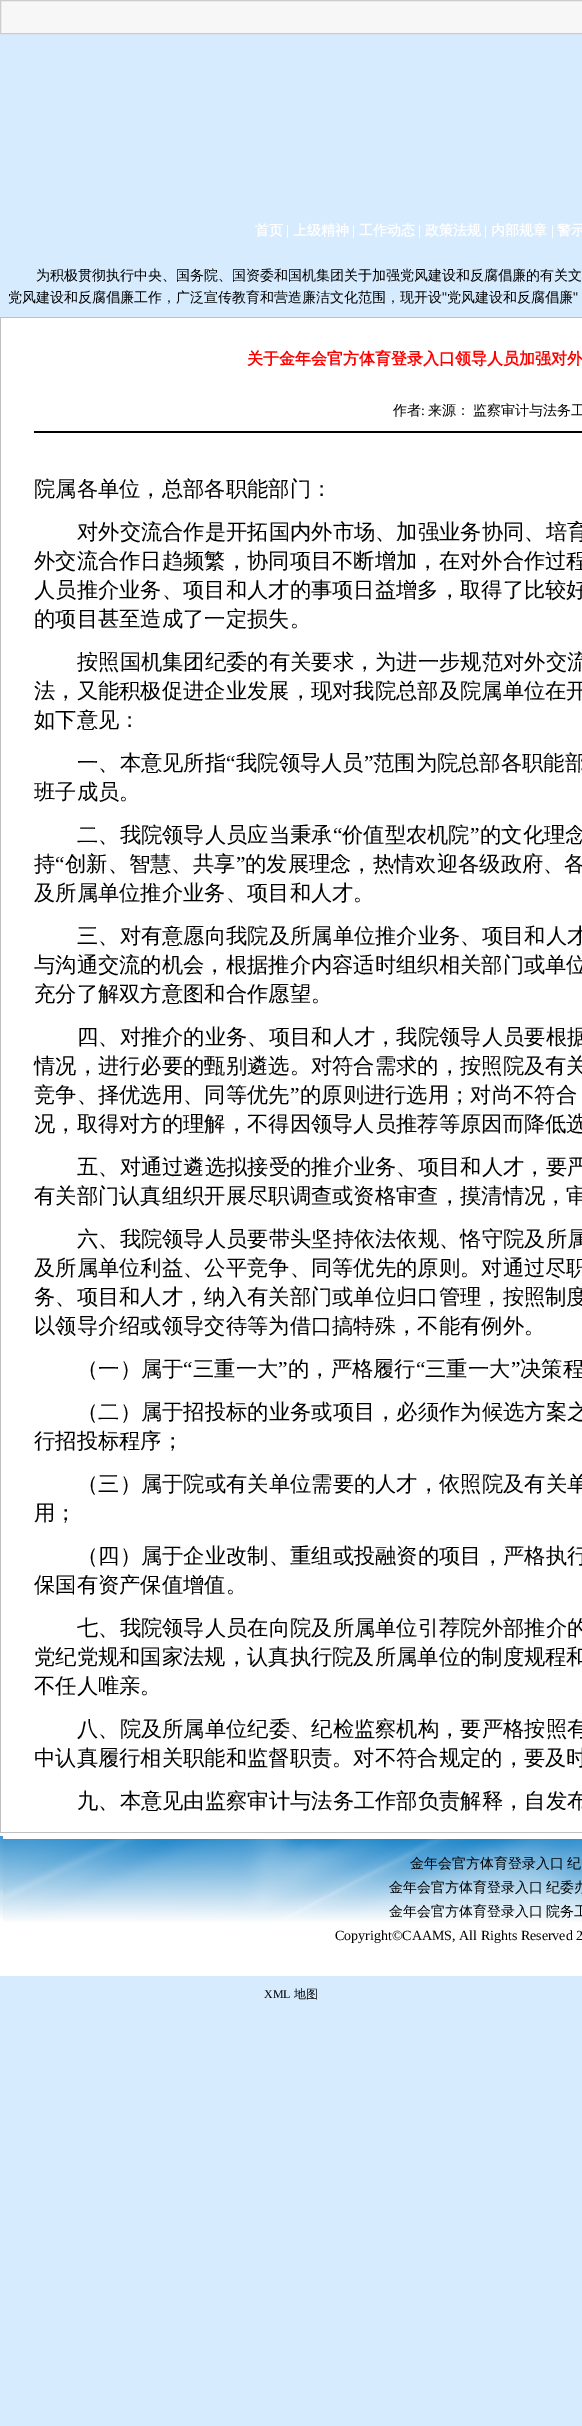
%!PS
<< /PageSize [582 2426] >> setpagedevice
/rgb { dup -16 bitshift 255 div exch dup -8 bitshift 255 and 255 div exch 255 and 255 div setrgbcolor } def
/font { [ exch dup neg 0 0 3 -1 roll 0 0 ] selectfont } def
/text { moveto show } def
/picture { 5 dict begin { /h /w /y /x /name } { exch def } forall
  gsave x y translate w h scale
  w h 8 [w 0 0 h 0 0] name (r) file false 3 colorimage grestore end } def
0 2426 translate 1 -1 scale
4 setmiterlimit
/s1 { /WenQuanYiZenHei-Bold 14 font 16#FFFFFF rgb } def
/s2 { /LiberationSerif-Bold 14 font 16#FFFFFF rgb } def
/s3 { /WenQuanYiZenHei-Medium 14 font 16#000000 rgb } def
/s4 { /LiberationSans-Regular 14 font 16#000000 rgb } def
/s5 { /WenQuanYiZenHei-Bold 16 font 16#FF0000 rgb } def
/s6 { /LiberationSerif-Regular 14 font 16#000000 rgb } def
/s7 { /WenQuanYiZenHei-Medium 21.3 font 16#000000 rgb } def
/s8 { /LiberationSerif-Regular 21.3 font 16#000000 rgb } def
/s9 { /LiberationSerif-Regular 12 font 16#000000 rgb } def
/s10 { /WenQuanYiZenHei-Medium 12 font 16#000000 rgb } def
16#D7EBFF rgb
0 0 582 2426 rectfill
16#F7F7F7 rgb
0.5 0.5 moveto 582.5 0.5 lineto 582.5 33.5 lineto 0.5 33.5 lineto closepath gsave fill grestore
16#CCCCCC rgb
stroke
s1
(首页) 255 235 text
s2
(|) 286 235 text
s1
(上级精神) 293 235 text
s2
(|) 352 235 text
s1
(工作动态) 359 235 text
s2
(|) 418 235 text
s1
(政策法规) 425 235 text
s2
(|) 484 235 text
s1
(内部规章) 491 235 text
s2
(|) 551 235 text
s1
(警示) 557 235 text
s3
(为积极贯彻执行中央、国务院、国资委和国机集团关于加强党风建设和反腐倡廉的有关文) 36 280 text
(党风建设和反腐倡廉工作，广泛宣传教育和营造廉洁文化范围，现开设) 8 302 text
s4
(") 442 302 text
s3
(党风建设和反腐倡廉) 447 302 text
s4
(") 573 302 text
16#FFFFFF rgb
0 318 582 1658 rectfill
16#C0C0C0 rgb
0 317 582 1 rectfill
0 1832 582 1 rectfill
0 317 1 1516 rectfill
s5
(关于金年会官方体育登录入口领导人员加强对外) 247 364 text
s3
(作者) 393 415 text
s6
(:) 421 415 text
s3
(来源：) 428 415 text
(监察审计与法务工) 473 415 text
34 431 548 2 rectfill
s7
(院属各单位，总部各职能部门：) 34 496 text
(对外交流合作是开拓国内外市场、加强业务协同、培育) 77 539 text
(外交流合作日趋频繁，协同项目不断增加，在对外合作过程) 34 568 text
(人员推介业务、项目和人才的事项日益增多，取得了比较好) 34 597 text
(的项目甚至造成了一定损失。) 34 626 text
(按照国机集团纪委的有关要求，为进一步规范对外交流) 77 669 text
(法，又能积极促进企业发展，现对我院总部及院属单位在开) 34 698 text
(如下意见：) 34 727 text
(一、本意见所指) 77 770 text
s8
(“) 226 770 text
s7
(我院领导人员) 236 770 text
s8
(”) 364 770 text
s7
(范围为院总部各职能部) 373 770 text
(班子成员。) 34 799 text
(二、我院领导人员应当秉承) 77 842 text
s8
(“) 333 842 text
s7
(价值型农机院) 342 842 text
s8
(”) 470 842 text
s7
(的文化理念) 480 842 text
(持) 34 871 text
s8
(“) 55 871 text
s7
(创新、智慧、共享) 65 871 text
s8
(”) 236 871 text
s7
(的发展理念，热情欢迎各级政府、各) 245 871 text
(及所属单位推介业务、项目和人才。) 34 900 text
(三、对有意愿向我院及所属单位推介业务、项目和人才) 77 943 text
(与沟通交流的机会，根据推介内容适时组织相关部门或单位) 34 972 text
(充分了解双方意图和合作愿望。) 34 1001 text
(四、对推介的业务、项目和人才，我院领导人员要根据) 77 1044 text
(情况，进行必要的甄别遴选。对符合需求的，按照院及有关) 34 1073 text
(竞争、择优选用、同等优先) 34 1102 text
s8
(”) 290 1102 text
s7
(的原则进行选用；对尚不符合) 300 1102 text
(况，取得对方的理解，不得因领导人员推荐等原因而降低选) 34 1131 text
(五、对通过遴选拟接受的推介业务、项目和人才，要严) 77 1174 text
(有关部门认真组织开展尽职调查或资格审查，摸清情况，审) 34 1203 text
(六、我院领导人员要带头坚持依法依规、恪守院及所属) 77 1246 text
(及所属单位利益、公平竞争、同等优先的原则。对通过尽职) 34 1275 text
(务、项目和人才，纳入有关部门或单位归口管理，按照制度) 34 1304 text
(以领导介绍或领导交待等为借口搞特殊，不能有例外。) 34 1333 text
(（一）属于) 77 1376 text
s8
(“) 183 1376 text
s7
(三重一大) 193 1376 text
s8
(”) 278 1376 text
s7
(的，严格履行) 288 1376 text
s8
(“) 416 1376 text
s7
(三重一大) 425 1376 text
s8
(”) 511 1376 text
s7
(决策程) 520 1376 text
(（二）属于招投标的业务或项目，必须作为候选方案之) 77 1419 text
(行招投标程序；) 34 1448 text
(（三）属于院或有关单位需要的人才，依照院及有关单) 77 1491 text
(用；) 34 1520 text
(（四）属于企业改制、重组或投融资的项目，严格执行) 77 1563 text
(保国有资产保值增值。) 34 1592 text
(七、我院领导人员在向院及所属单位引荐院外部推介的) 77 1635 text
(党纪党规和国家法规，认真执行院及所属单位的制度规程和) 34 1664 text
(不任人唯亲。) 34 1693 text
(八、院及所属单位纪委、纪检监察机构，要严格按照有) 77 1736 text
(中认真履行相关职能和监督职责。对不符合规定的，要及时) 34 1765 text
(九、本意见由监察审计与法务工作部负责解释，自发布) 77 1808 text
(pic1.raw) 0 1836 3 83 picture
(pic2.raw) 3 1836 579 86 picture
/WenQuanYiZenHei-Medium 14 font
410 1868 moveto -1 0 32 (金年会官方体育登录入口 纪) widthshow
389 1892 moveto -1 0 32 (金年会官方体育登录入口 纪委办) widthshow
389 1916 moveto -1 0 32 (金年会官方体育登录入口 院务工) widthshow
s6
(Copyright©CAAMS, All Rights Reserved 2) 335 1940 text
s9
(XML) 264 1998 text
s10
(地图) 294 1998 text
showpage
